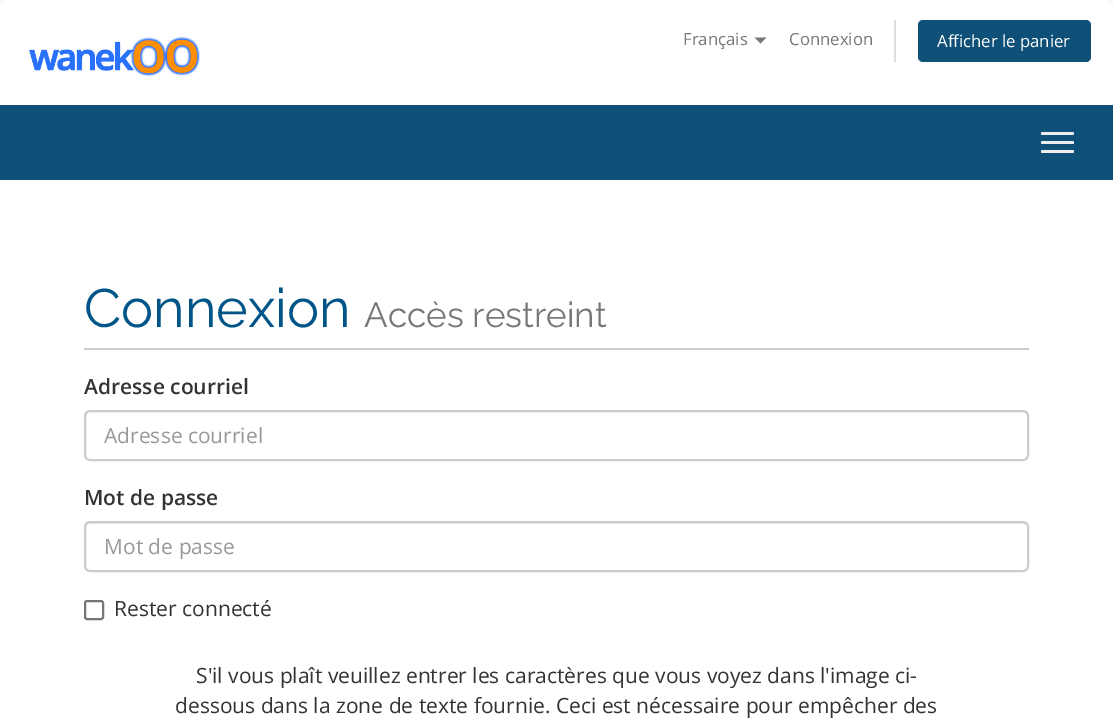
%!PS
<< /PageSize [1113 725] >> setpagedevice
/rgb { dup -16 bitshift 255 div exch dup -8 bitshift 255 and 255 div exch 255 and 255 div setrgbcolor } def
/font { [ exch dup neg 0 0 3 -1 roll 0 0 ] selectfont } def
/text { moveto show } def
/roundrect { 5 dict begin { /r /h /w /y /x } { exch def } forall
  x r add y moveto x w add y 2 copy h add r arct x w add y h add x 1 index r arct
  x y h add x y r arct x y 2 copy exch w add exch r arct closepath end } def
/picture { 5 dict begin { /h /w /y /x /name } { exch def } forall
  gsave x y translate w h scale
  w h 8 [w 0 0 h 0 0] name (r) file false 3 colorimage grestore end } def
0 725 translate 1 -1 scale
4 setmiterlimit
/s1 { /OpenSans-Regular 16.75 font 16#777777 rgb } def
/s2 { /OpenSans-Regular 16.75 font 16#FFFFFF rgb } def
/s3 { /Raleway-Regular 54 font 16#005588 rgb } def
/s4 { /Raleway-Regular 35 font 16#777777 rgb } def
/s5 { /OpenSans-SemiBold 21 font 16#333333 rgb } def
/s6 { /OpenSans-Regular 21 font 16#999999 rgb } def
/s7 { /OpenSans-Regular 21 font 16#333333 rgb } def
16#F8F8F8 rgb
0 0 1113 725 rectfill
16#FFFFFF rgb
8 0 moveto 1105 0 lineto 1109.5 0 1113 3.5 1113 8 curveto 1113 105 lineto 0 105 lineto 0 8 lineto 0 3.5 3.5 0 8 0 curveto closepath fill
(pic1.raw) 29 36 171 41 picture
s1
(Français) 683 45 text
754.5 37.5 moveto 766.5 37.5 lineto 760.5 43.5 lineto closepath fill
(Connexion) 789 45 text
16#DDDDDD rgb
894 20 2 42 rectfill
16#0E5077 rgb
918 20 173 42 5 roundrect fill
s2
(Afficher le panier) 937 47 text
16#0E5077 rgb
0 105 1113 75 rectfill
16#EEEEEE rgb
1041 132 33 3 1.5 roundrect fill
1041 141 33 3 1.5 roundrect fill
1041 150 33 3 1.5 roundrect fill
16#FFFFFF rgb
0 180 1113 545 rectfill
16#CCCCCC rgb
84 348 945 2 rectfill
s3
(Connexion) 84 327 text
s4
(Accès restreint) 364 327 text
s5
(Adresse courriel) 84 394 text
16#ECECEC rgb
90 412 moveto 1023 412 lineto 1025 412 1028 415 1028 417 curveto 1028 414 1026 411 1023 411 curveto 91 411 lineto 88 411 86 414 86 417 curveto 86 415 88 412 90 412 curveto closepath fill
16#CCCCCC rgb
2 setlinewidth
85 411 943 49 5 roundrect stroke
s6
(Adresse courriel) 104 443 text
s5
(Mot de passe) 84 505 text
16#ECECEC rgb
90 524 moveto 1023 524 lineto 1025 524 1028 526 1028 528 curveto 1028 525 1026 522 1023 522 curveto 91 522 lineto 88 522 86 525 86 528 curveto 86 526 88 524 90 524 curveto closepath fill
16#CCCCCC rgb
85 522 943 49 5 roundrect stroke
s6
(Mot de passe) 104 554 text
16#767676 rgb
85 601 18 18 2 roundrect stroke
s7
(Rester connecté) 114 616 text
(S'il vous plaît veuillez entrer les caractères que vous voyez dans l'image ci-) 196 683 text
(dessous dans la zone de texte fournie. Ceci est nécessaire pour empêcher des) 175 713 text
showpage
